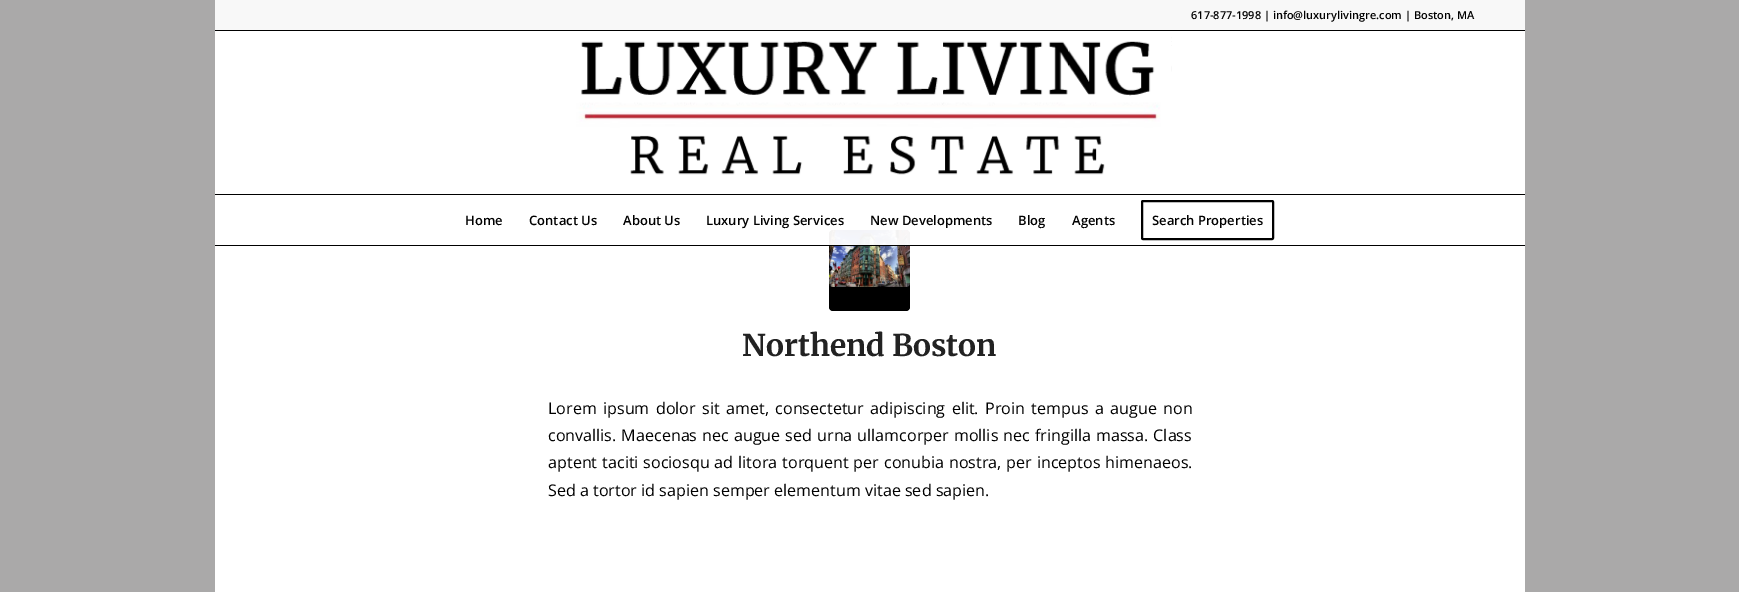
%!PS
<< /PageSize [1739 592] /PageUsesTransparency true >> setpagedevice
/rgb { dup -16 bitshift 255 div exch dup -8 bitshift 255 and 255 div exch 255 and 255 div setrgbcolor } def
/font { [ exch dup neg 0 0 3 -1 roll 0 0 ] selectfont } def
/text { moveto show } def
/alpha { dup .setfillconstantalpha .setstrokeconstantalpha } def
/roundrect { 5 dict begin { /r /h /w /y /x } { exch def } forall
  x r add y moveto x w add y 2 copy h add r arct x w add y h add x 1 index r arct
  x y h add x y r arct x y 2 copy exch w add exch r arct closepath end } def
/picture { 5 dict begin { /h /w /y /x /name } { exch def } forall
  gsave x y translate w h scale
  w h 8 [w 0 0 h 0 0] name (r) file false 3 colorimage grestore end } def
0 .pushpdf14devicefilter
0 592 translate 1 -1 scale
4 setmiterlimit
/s1 { /OpenSans-SemiBold 11 font 16#000000 rgb } def
/s2 { /OpenSans-SemiBold 13 font 16#000000 rgb } def
/s3 { /Merriweather-Bold 30 font 16#222222 rgb } def
/s4 { /OpenSans-Regular 16.1 font 16#000000 rgb } def
16#AAA9A9 rgb
0 0 1739 592 rectfill
16#F8F8F8 rgb
215 0 1310 30 rectfill
16#000000 rgb
215 30 1310 1 rectfill
s1
(617-877-1998 | info@luxurylivingre.com | Boston, MA) 1191 19 text
16#FFFFFF rgb
215 31 1310 561 rectfill
16#000000 rgb
829 230 81 81 4 roundrect fill
(pic2.raw) 829 230 81 57 picture
215 245 1310 1 rectfill
(pic1.raw) 568 34 604 141 picture
215 194 1310 1 rectfill
s2
(Home) 465 225 text
(Contact Us) 529 225 text
(About Us) 623 225 text
(Luxury Living Services) 706 225 text
(New Developments) 870 225 text
(Blog) 1018 225 text
(Agents) 1072 225 text
2 setlinewidth
1142 201 131 38 1 roundrect stroke
(Search Properties) 1152 225 text
0.95 alpha
16#FFFFFF rgb
829 230 81 15 rectfill
1 alpha
s3
(Northend Boston) 742 356 text
/OpenSans-Regular 16.1 font
16#000000 rgb
548 414 moveto 2.25 0 32 (Lorem ipsum dolor sit amet, consectetur adipiscing elit. Proin tempus a augue non) widthshow
548 441 moveto 0.9 0 32 (convallis. Maecenas nec augue sed urna ullamcorper mollis nec fringilla massa. Class) widthshow
548 468 moveto 0.75 0 32 (aptent taciti sociosqu ad litora torquent per conubia nostra, per inceptos himenaeos.) widthshow
(Sed a tortor id sapien semper elementum vitae sed sapien.) 548 496 text
.poppdf14devicefilter showpage
